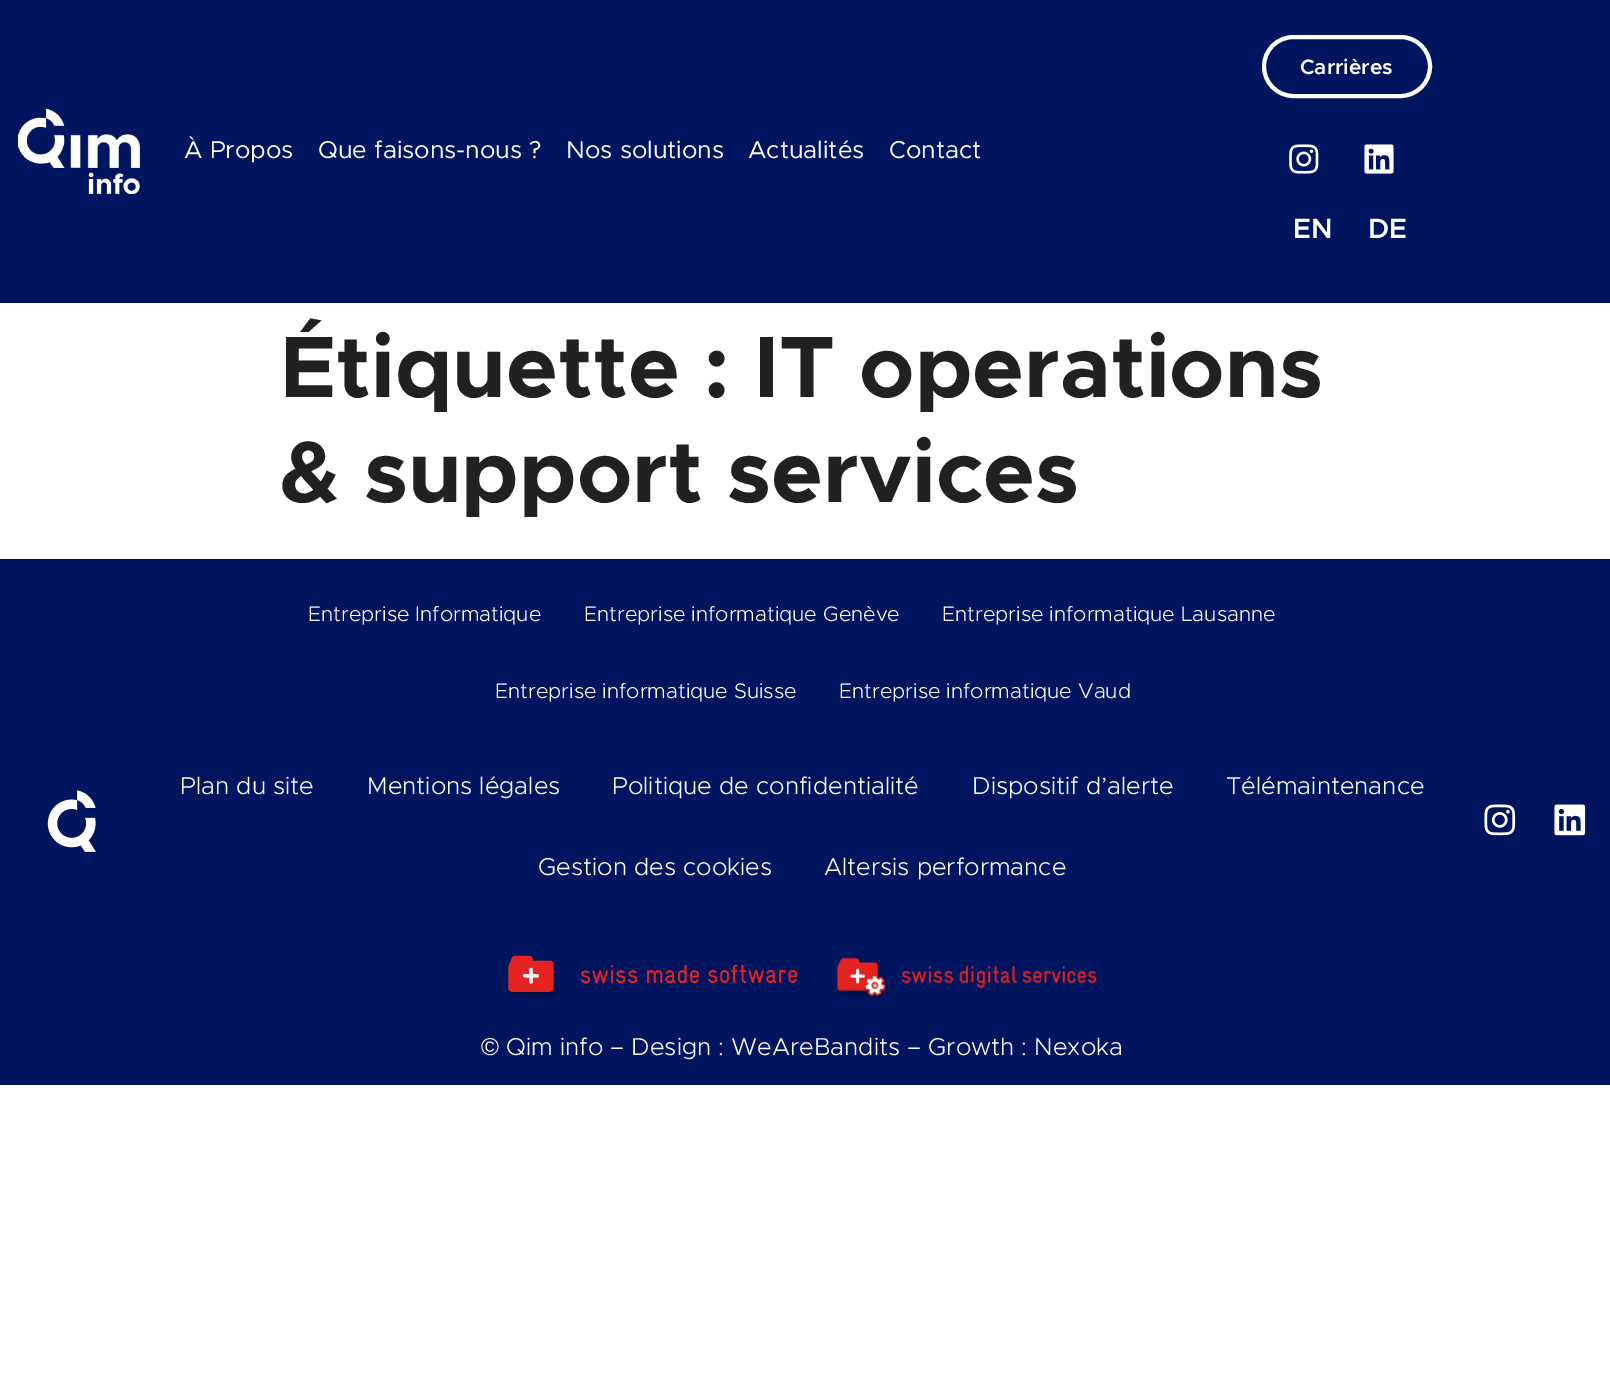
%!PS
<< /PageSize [1610 1387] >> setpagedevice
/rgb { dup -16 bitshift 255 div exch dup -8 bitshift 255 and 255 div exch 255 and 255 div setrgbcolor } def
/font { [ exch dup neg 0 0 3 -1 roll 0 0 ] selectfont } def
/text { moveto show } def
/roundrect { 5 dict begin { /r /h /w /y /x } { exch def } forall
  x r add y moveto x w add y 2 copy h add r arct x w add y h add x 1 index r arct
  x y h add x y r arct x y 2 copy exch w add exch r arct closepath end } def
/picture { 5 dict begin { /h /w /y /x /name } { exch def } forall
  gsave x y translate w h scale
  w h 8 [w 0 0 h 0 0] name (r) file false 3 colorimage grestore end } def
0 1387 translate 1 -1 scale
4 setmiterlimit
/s1 { /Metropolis-Regular 24.5 font 16#FFFFFF rgb } def
/s2 { /Metropolis-SemiBold 21 font 16#FFFFFF rgb } def
/s3 { /Metropolis-SemiBold 28 font 16#FFFFFF rgb } def
/s4 { /Metropolis-Bold 87.5 font 16#212121 rgb } def
/s5 { /Metropolis-Light 21 font 16#FFFFFF rgb } def
/s6 { /Metropolis-Light 24.5 font 16#FFFFFF rgb } def
/s7 { /LiberationSans-Regular 24.5 font 16#FFFFFF rgb } def
16#FFFFFF rgb
0 0 1610 1387 rectfill
16#001560 rgb
0 0 1610 303 rectfill
(pic1.raw) 18 109 122 85 picture
s1
(À Propos) 184 158 text
(Que faisons-nous ?) 318 158 text
(Nos solutions) 566 158 text
(Actualités) 748 158 text
(Contact) 889 158 text
4 setlinewidth
1264 37 166 59 29.5 roundrect stroke
s2
(Carrières) 1300 74 text
(pic2.raw) 1289 144 30 30 picture
(pic3.raw) 1364 144 30 30 picture
s3
(EN) 1293 238 text
(DE) 1368 238 text
s4
(Étiquette : IT operations) 280 397 text
(& support services) 280 502 text
16#001560 rgb
0 559 1610 526 rectfill
(pic4.raw) 47 790 49 62 picture
s5
(Entreprise Informatique) 308 621 text
(Entreprise informatique Genève) 584 621 text
(Entreprise informatique Lausanne) 942 621 text
(Entreprise informatique Suisse) 495 698 text
(Entreprise informatique Vaud) 839 698 text
s6
(Plan du site) 180 794 text
(Mentions légales) 367 794 text
(Politique de confidentialité) 612 794 text
(Dispositif d’alerte) 972 794 text
(Télémaintenance) 1226 794 text
(Gestion des cookies) 538 875 text
(Altersis performance) 824 875 text
(pic5.raw) 507 955 291 45 picture
(pic6.raw) 836 957 261 42 picture
s7
(©) 481 1055 text
s6
(Qim info – Design : WeAreBandits – Growth : Nexoka) 506 1055 text
(pic7.raw) 1484 804 32 32 picture
(pic8.raw) 1554 804 32 32 picture
showpage
